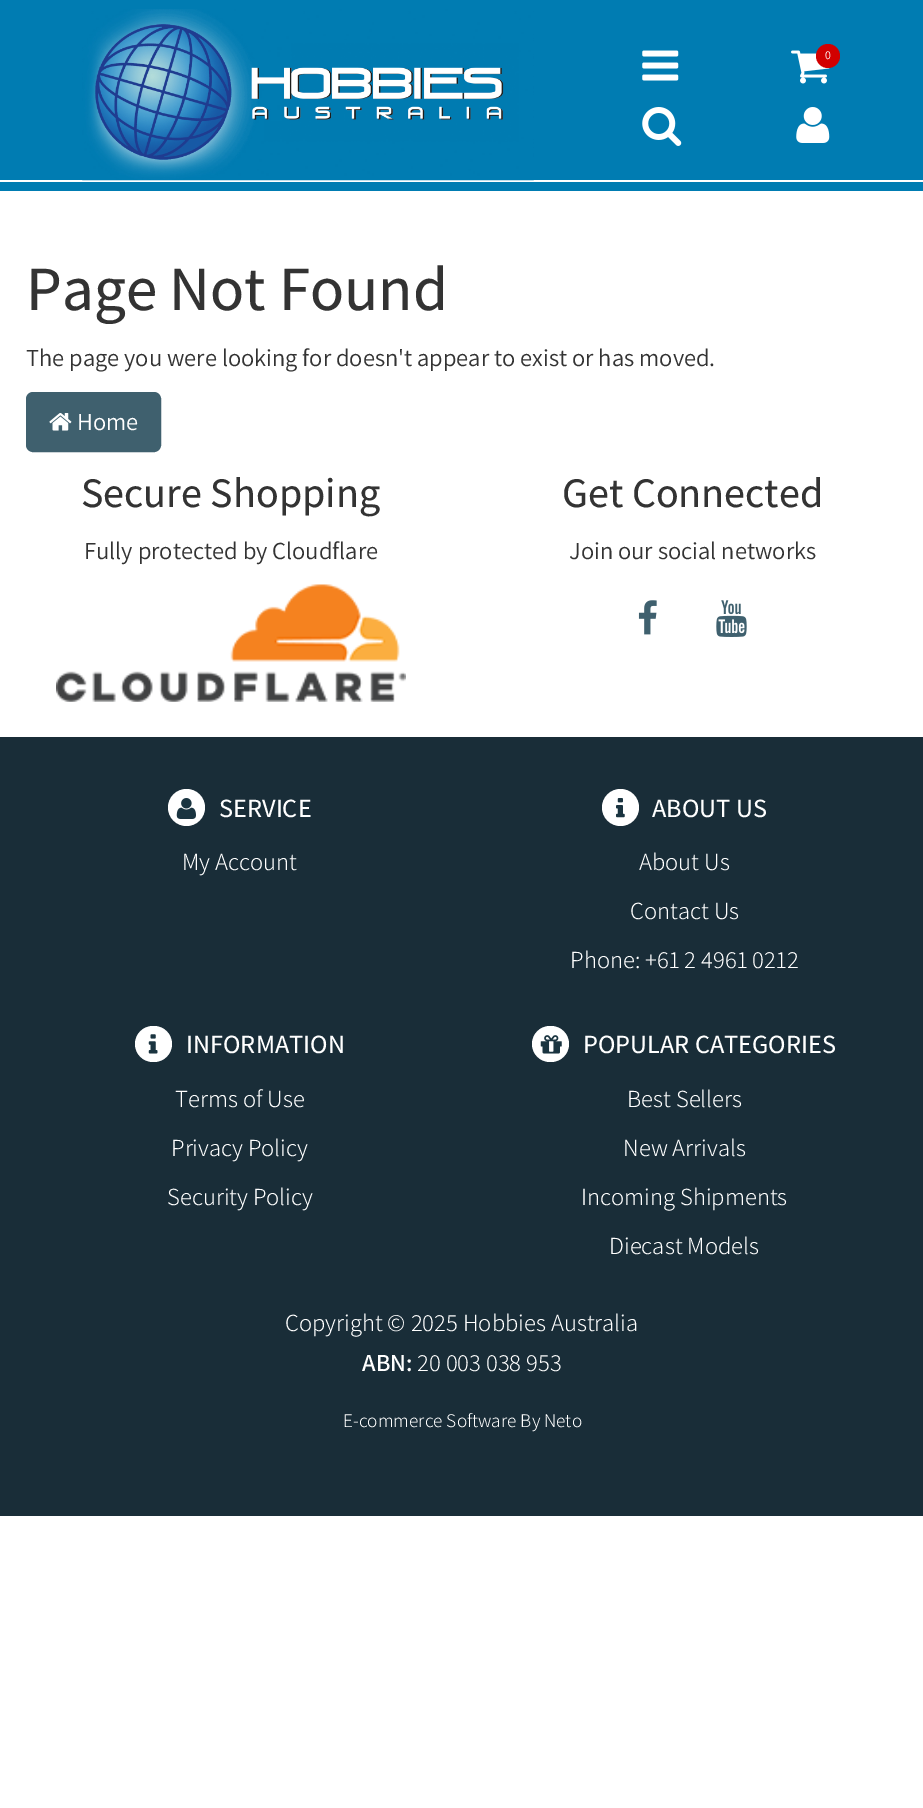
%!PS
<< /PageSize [923 1808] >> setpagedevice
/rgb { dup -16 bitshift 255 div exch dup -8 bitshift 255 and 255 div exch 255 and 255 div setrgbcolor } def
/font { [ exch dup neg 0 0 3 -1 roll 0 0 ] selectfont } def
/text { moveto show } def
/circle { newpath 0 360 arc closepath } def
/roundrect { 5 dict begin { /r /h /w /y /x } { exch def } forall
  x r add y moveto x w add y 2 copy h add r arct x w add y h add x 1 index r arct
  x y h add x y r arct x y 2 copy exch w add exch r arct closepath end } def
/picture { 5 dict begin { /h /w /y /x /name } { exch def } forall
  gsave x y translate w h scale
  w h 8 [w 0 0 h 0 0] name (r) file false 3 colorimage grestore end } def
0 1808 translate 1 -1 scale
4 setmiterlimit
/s1 { /Assistant-Regular 12 font 16#FFFFFF rgb } def
/s2 { /Assistant-Medium 63 font 16#333333 rgb } def
/s3 { /Assistant-Regular 24.5 font 16#333333 rgb } def
/s4 { /Assistant-Regular 24.5 font 16#FFFFFF rgb } def
/s5 { /Assistant-Medium 42 font 16#333333 rgb } def
/s6 { /Assistant-Medium 26.25 font 16#FFFFFF rgb } def
/s7 { /Assistant-Light 24.5 font 16#FFFFFF rgb } def
/s8 { /Assistant-SemiBold 24.5 font 16#FFFFFF rgb } def
/s9 { /Assistant-Light 19.25 font 16#FFFFFF rgb } def
16#FFFFFF rgb
0 0 923 1808 rectfill
16#007CB2 rgb
0 0 923 191 rectfill
16#FFFFFF rgb
0 180 923 2 rectfill
(pic1.raw) 82 9 452 172 picture
(pic2.raw) 642 50 37 31 picture
(pic3.raw) 791 50 39 34 picture
16#D20000 rgb
828 56 12 circle fill
s1
(0) 825 59 text
(pic4.raw) 642 107 40 39 picture
(pic5.raw) 796 107 34 36 picture
s2
(Page Not Found) 26 310 text
s3
(The page you were looking for doesn't appear to exist or has moved.) 26 366 text
16#3F606E rgb
27 393 133 58 6 roundrect gsave fill grestore
2 setlinewidth
stroke
(pic6.raw) 49 413 23 18 picture
s4
(Home) 77 430 text
s5
(Secure Shopping) 81 507 text
s3
(Fully protected by Cloudflare) 84 559 text
(pic7.raw) 56 584 350 118 picture
s5
(Get Connected) 562 507 text
s3
(Join our social networks) 569 559 text
(pic8.raw) 638 600 19 35 picture
(pic9.raw) 716 600 31 37 picture
16#192D38 rgb
0 737 923 779 rectfill
16#FFFFFF rgb
186.5 807.5 18.5 circle fill
(pic10.raw) 176 798 20 21 picture
s6
(SERVICE) 219 817 text
s7
(My Account) 182 870 text
620.5 807.5 18.5 circle fill
(pic11.raw) 616 798 9 20 picture
s6
(ABOUT US) 652 817 text
s7
(About Us) 639 870 text
(Contact Us) 630 919 text
(Phone: +61 2 4961 0212) 570 968 text
135 1026 37 36 18 roundrect fill
(pic12.raw) 148 1034 10 20 picture
s6
(INFORMATION) 186 1053 text
s7
(Terms of Use) 175 1107 text
(Privacy Policy) 171 1156 text
(Security Policy) 167 1205 text
532 1026 37 36 18 roundrect fill
(pic13.raw) 540 1035 22 19 picture
s6
(POPULAR CATEGORIES) 583 1053 text
s7
(Best Sellers) 627 1107 text
(New Arrivals) 623 1156 text
(Incoming Shipments) 581 1205 text
(Diecast Models) 609 1254 text
(Copyright © 2025 Hobbies Australia) 285 1331 text
s8
(ABN:) 362 1371 text
s7
(20 003 038 953) 417 1371 text
s9
(E-commerce Software By Neto) 343 1427 text
showpage
